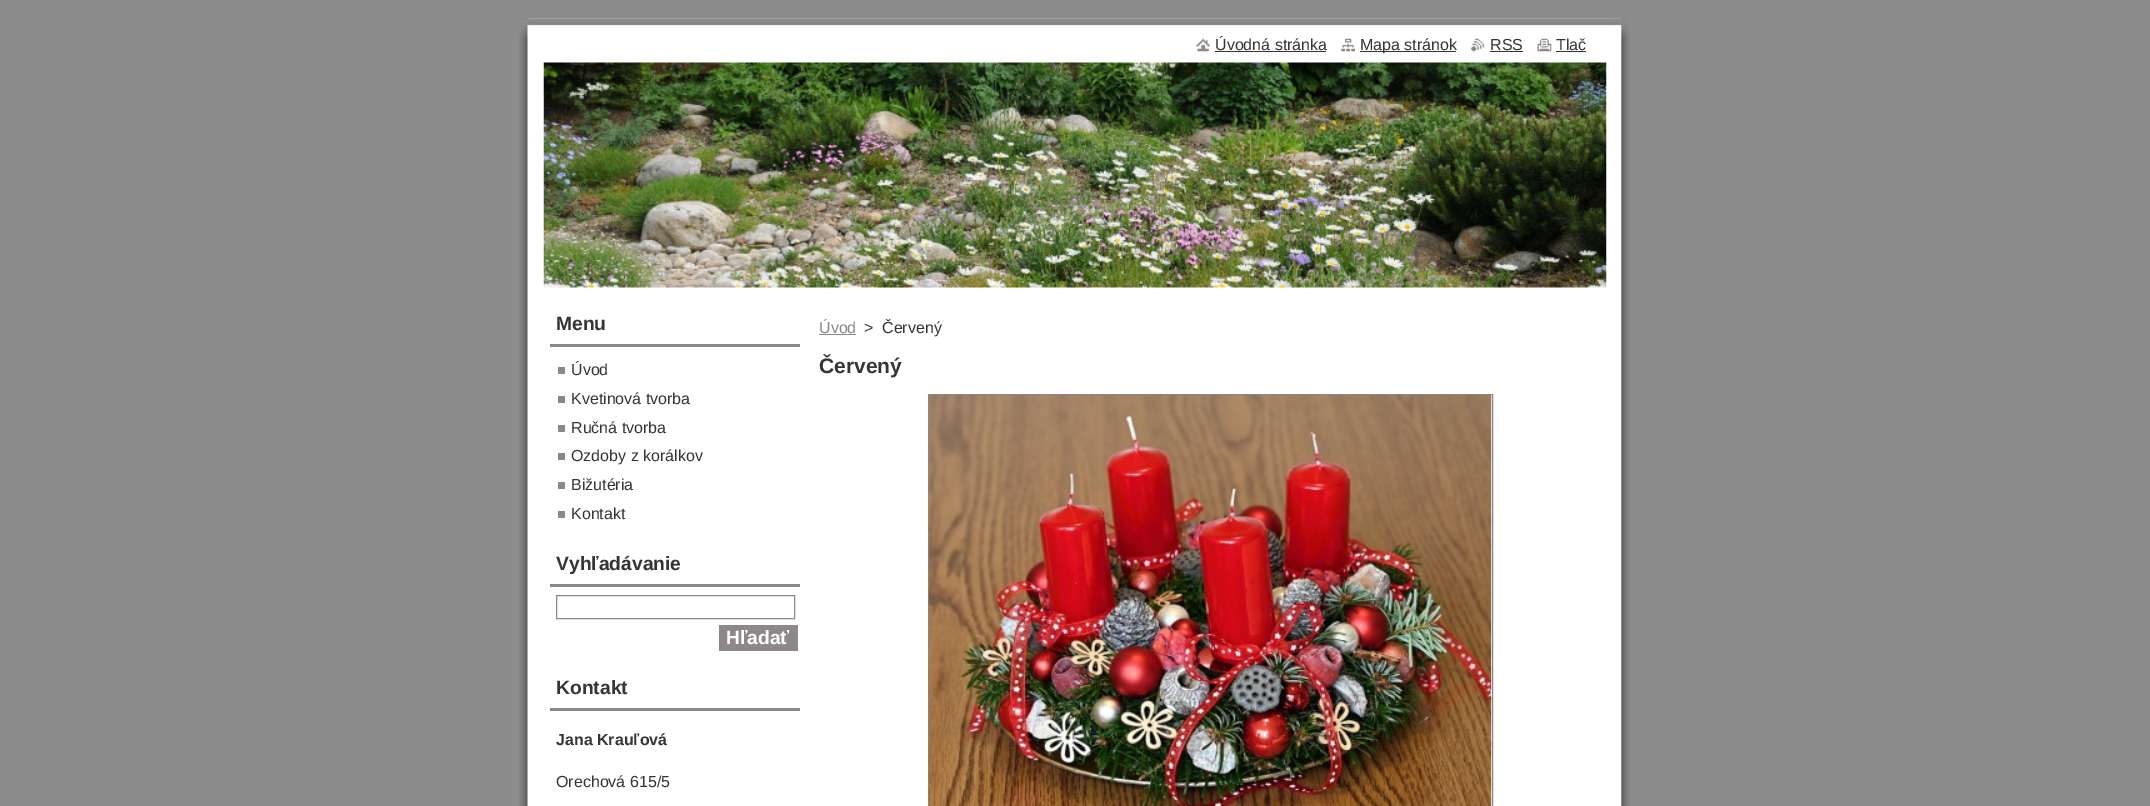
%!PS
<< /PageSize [2150 806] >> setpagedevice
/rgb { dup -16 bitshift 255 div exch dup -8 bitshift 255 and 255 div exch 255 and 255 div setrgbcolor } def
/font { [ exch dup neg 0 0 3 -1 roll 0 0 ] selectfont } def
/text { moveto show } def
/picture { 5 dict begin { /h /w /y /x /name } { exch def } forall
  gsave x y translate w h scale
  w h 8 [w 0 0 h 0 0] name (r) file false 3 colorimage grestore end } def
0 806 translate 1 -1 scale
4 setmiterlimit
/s1 { /LiberationSans-Regular 16 font 16#353535 rgb } def
/s2 { /LiberationSans-Bold 19.25 font 16#353535 rgb } def
/s3 { /LiberationSans-Bold 19.25 font 16#FFFFFF rgb } def
/s4 { /LiberationSans-Bold 16 font 16#353535 rgb } def
/s5 { /LiberationSans-Regular 16 font 16#8D8787 rgb } def
/s6 { /LiberationSans-Bold 21 font 16#353535 rgb } def
16#8C8C8C rgb
0 0 2150 806 rectfill
(pic1.raw) 519 18 1111 774 picture
(pic2.raw) 519 18 1111 21 picture
(pic3.raw) 519 792 1111 14 picture
(pic4.raw) 1196 38 14 14 picture
s1
(Úvodná stránka) 1215 50 text
1215 51 111 1 rectfill
(pic5.raw) 1341 38 14 14 picture
1360 51 96 1 rectfill
(Mapa stránok) 1360 50 text
(pic6.raw) 1471 38 13 14 picture
(RSS) 1490 50 text
1490 51 33 1 rectfill
(pic7.raw) 1537 38 15 14 picture
(Tlač) 1556 50 text
1556 51 30 1 rectfill
(pic8.raw) 543 62 1064 226 picture
16#8D8787 rgb
550 344 250 3 rectfill
s2
(Menu) 556 330 text
s1
(Úvod) 571 375 text
16#8D8787 rgb
558 367 7 7 rectfill
s1
(Kvetinová tvorba) 571 404 text
16#8D8787 rgb
558 396 7 7 rectfill
s1
(Ručná tvorba) 571 433 text
16#8D8787 rgb
558 425 7 7 rectfill
s1
(Ozdoby z korálkov) 571 461 text
16#8D8787 rgb
558 453 7 7 rectfill
s1
(Bižutéria) 571 490 text
16#8D8787 rgb
558 482 7 7 rectfill
s1
(Kontakt) 571 519 text
16#8D8787 rgb
558 511 7 7 rectfill
550 584 250 3 rectfill
s2
(Vyhľadávanie) 556 570 text
16#8D8787 rgb
556.5 595.5 238 23 rectstroke
719 625 79 26 rectfill
s3
(Hľadať) 726 644 text
16#8D8787 rgb
550 708 250 3 rectfill
s2
(Kontakt) 556 694 text
s4
(Jana Krauľová) 556 745 text
s1
(Orechová 615/5) 556 787 text
s5
(Úvod) 819 333 text
819 334 37 1 rectfill
s1
(>) 864 333 text
(Červený) 882 333 text
s6
(Červený) 819 373 text
16#8D8787 rgb
928.5 394.5 564 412 rectstroke
(pic9.raw) 928 395 564 411 picture
showpage
